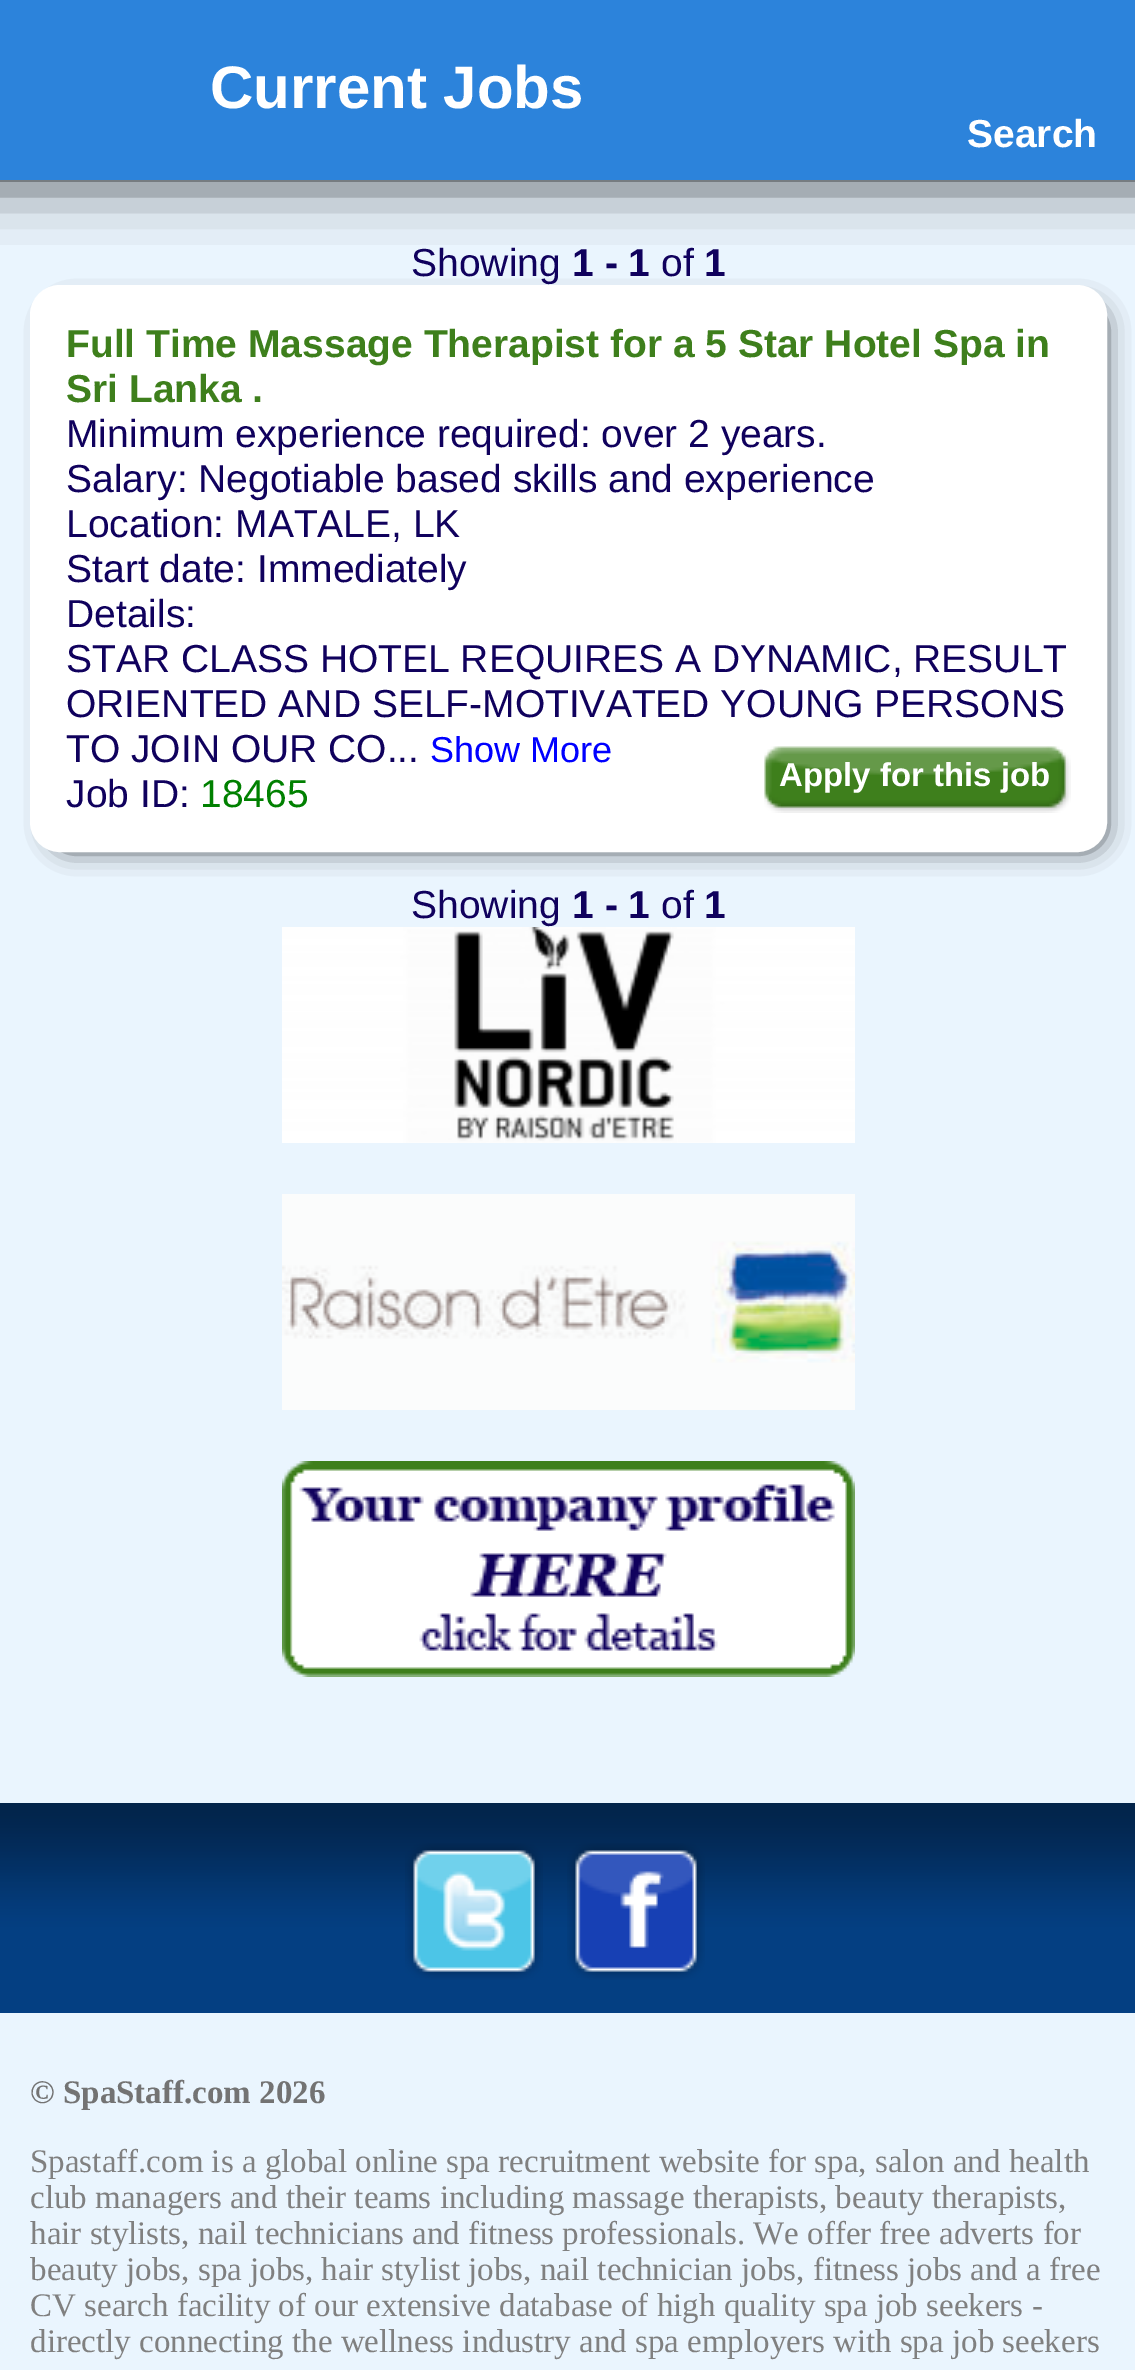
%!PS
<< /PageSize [1135 2370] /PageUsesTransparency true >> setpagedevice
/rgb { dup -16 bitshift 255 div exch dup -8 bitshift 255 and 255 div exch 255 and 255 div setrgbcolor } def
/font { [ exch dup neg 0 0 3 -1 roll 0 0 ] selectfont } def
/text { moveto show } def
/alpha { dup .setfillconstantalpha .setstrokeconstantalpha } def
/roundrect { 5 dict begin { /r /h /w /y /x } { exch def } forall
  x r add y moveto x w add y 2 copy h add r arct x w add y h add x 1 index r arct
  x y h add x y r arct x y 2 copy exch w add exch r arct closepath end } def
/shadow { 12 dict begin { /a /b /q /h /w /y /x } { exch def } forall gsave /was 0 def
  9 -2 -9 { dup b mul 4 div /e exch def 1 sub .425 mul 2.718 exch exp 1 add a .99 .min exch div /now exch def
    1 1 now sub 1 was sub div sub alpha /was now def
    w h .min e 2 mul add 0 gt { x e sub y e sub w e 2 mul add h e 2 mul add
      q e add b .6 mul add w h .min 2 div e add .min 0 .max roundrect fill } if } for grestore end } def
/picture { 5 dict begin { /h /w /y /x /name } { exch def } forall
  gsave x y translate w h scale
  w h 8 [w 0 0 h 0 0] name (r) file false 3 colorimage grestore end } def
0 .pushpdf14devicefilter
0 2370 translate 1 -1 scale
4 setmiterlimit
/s1 { /LiberationSans-Bold 60 font 16#FFFFFF rgb } def
/s2 { /LiberationSans-Bold 39 font 16#FFFFFF rgb } def
/s3 { /LiberationSans-Regular 39 font 16#10015D rgb } def
/s4 { /LiberationSans-Bold 39 font 16#10015D rgb } def
/s5 { /LiberationSans-Bold 39 font 16#3E7F1C rgb } def
/s6 { /LiberationSans-Regular 36 font 16#0000FF rgb } def
/s7 { /LiberationSans-Regular 39 font 16#008000 rgb } def
/s8 { /LiberationSans-Bold 33 font 16#FFFFFF rgb } def
/s9 { /LiberationSerif-Bold 33 font 16#737373 rgb } def
/s10 { /LiberationSerif-Regular 33 font 16#808080 rgb } def
16#EAF5FE rgb
0 0 1135 2370 rectfill
16#000000 rgb
-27 -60 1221 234 0 31.5 1 shadow
16#2C83DB rgb
0 0 1135 180 rectfill
s1
(Current Jobs) 210 108 text
s2
(Search) 967 147 text
16#000000 rgb
54 309 1047 537 15 13.5 1 shadow
s3
(Showing) 411 276 text
s4
(1 - 1) 572 276 text
s3
(of) 661 276 text
s4
(1) 704 276 text
16#FFFFFF rgb
33 288 1071 561 27 roundrect gsave fill grestore
6 setlinewidth
stroke
s5
(Full Time Massage Therapist for a 5 Star Hotel Spa in) 66 357 text
(Sri Lanka .) 66 402 text
s3
(Minimum experience required: over 2 years.) 66 447 text
(Salary: Negotiable based skills and experience) 66 492 text
(Location: MATALE, LK) 66 537 text
(Start date: Immediately) 66 582 text
(Details:) 66 627 text
(STAR CLASS HOTEL REQUIRES A DYNAMIC, RESULT) 66 672 text
(ORIENTED AND SELF-MOTIVATED YOUNG PERSONS) 66 717 text
(TO JOIN OUR CO...) 66 762 text
s6
(Show More) 430 762 text
s3
(Job ID:) 66 807 text
s7
(18465) 200 807 text
(pic1.raw) 764 746 307 67 picture
s8
(Apply for this job) 779 786 text
s3
(Showing) 411 918 text
s4
(1 - 1) 572 918 text
s3
(of) 661 918 text
s4
(1) 704 918 text
(pic2.raw) 282 927 573 216 picture
(pic3.raw) 282 1194 573 216 picture
(pic4.raw) 282 1461 573 216 picture
(pic5.raw) 0 1803 1135 210 picture
(pic6.raw) 405 1843 138 137 picture
(pic7.raw) 567 1843 138 137 picture
s9
(© SpaStaff.com 2026) 30 2103 text
s10
(Spastaff.com is a global online spa recruitment website for spa, salon and health) 30 2172 text
(club managers and their teams including massage therapists, beauty therapists,) 30 2208 text
(hair stylists, nail technicians and fitness professionals. We offer free adverts for) 30 2244 text
(beauty jobs, spa jobs, hair stylist jobs, nail technician jobs, fitness jobs and a free) 30 2280 text
(CV search facility of our extensive database of high quality spa job seekers -) 30 2316 text
(directly connecting the wellness industry and spa employers with spa job seekers) 30 2352 text
.poppdf14devicefilter showpage
